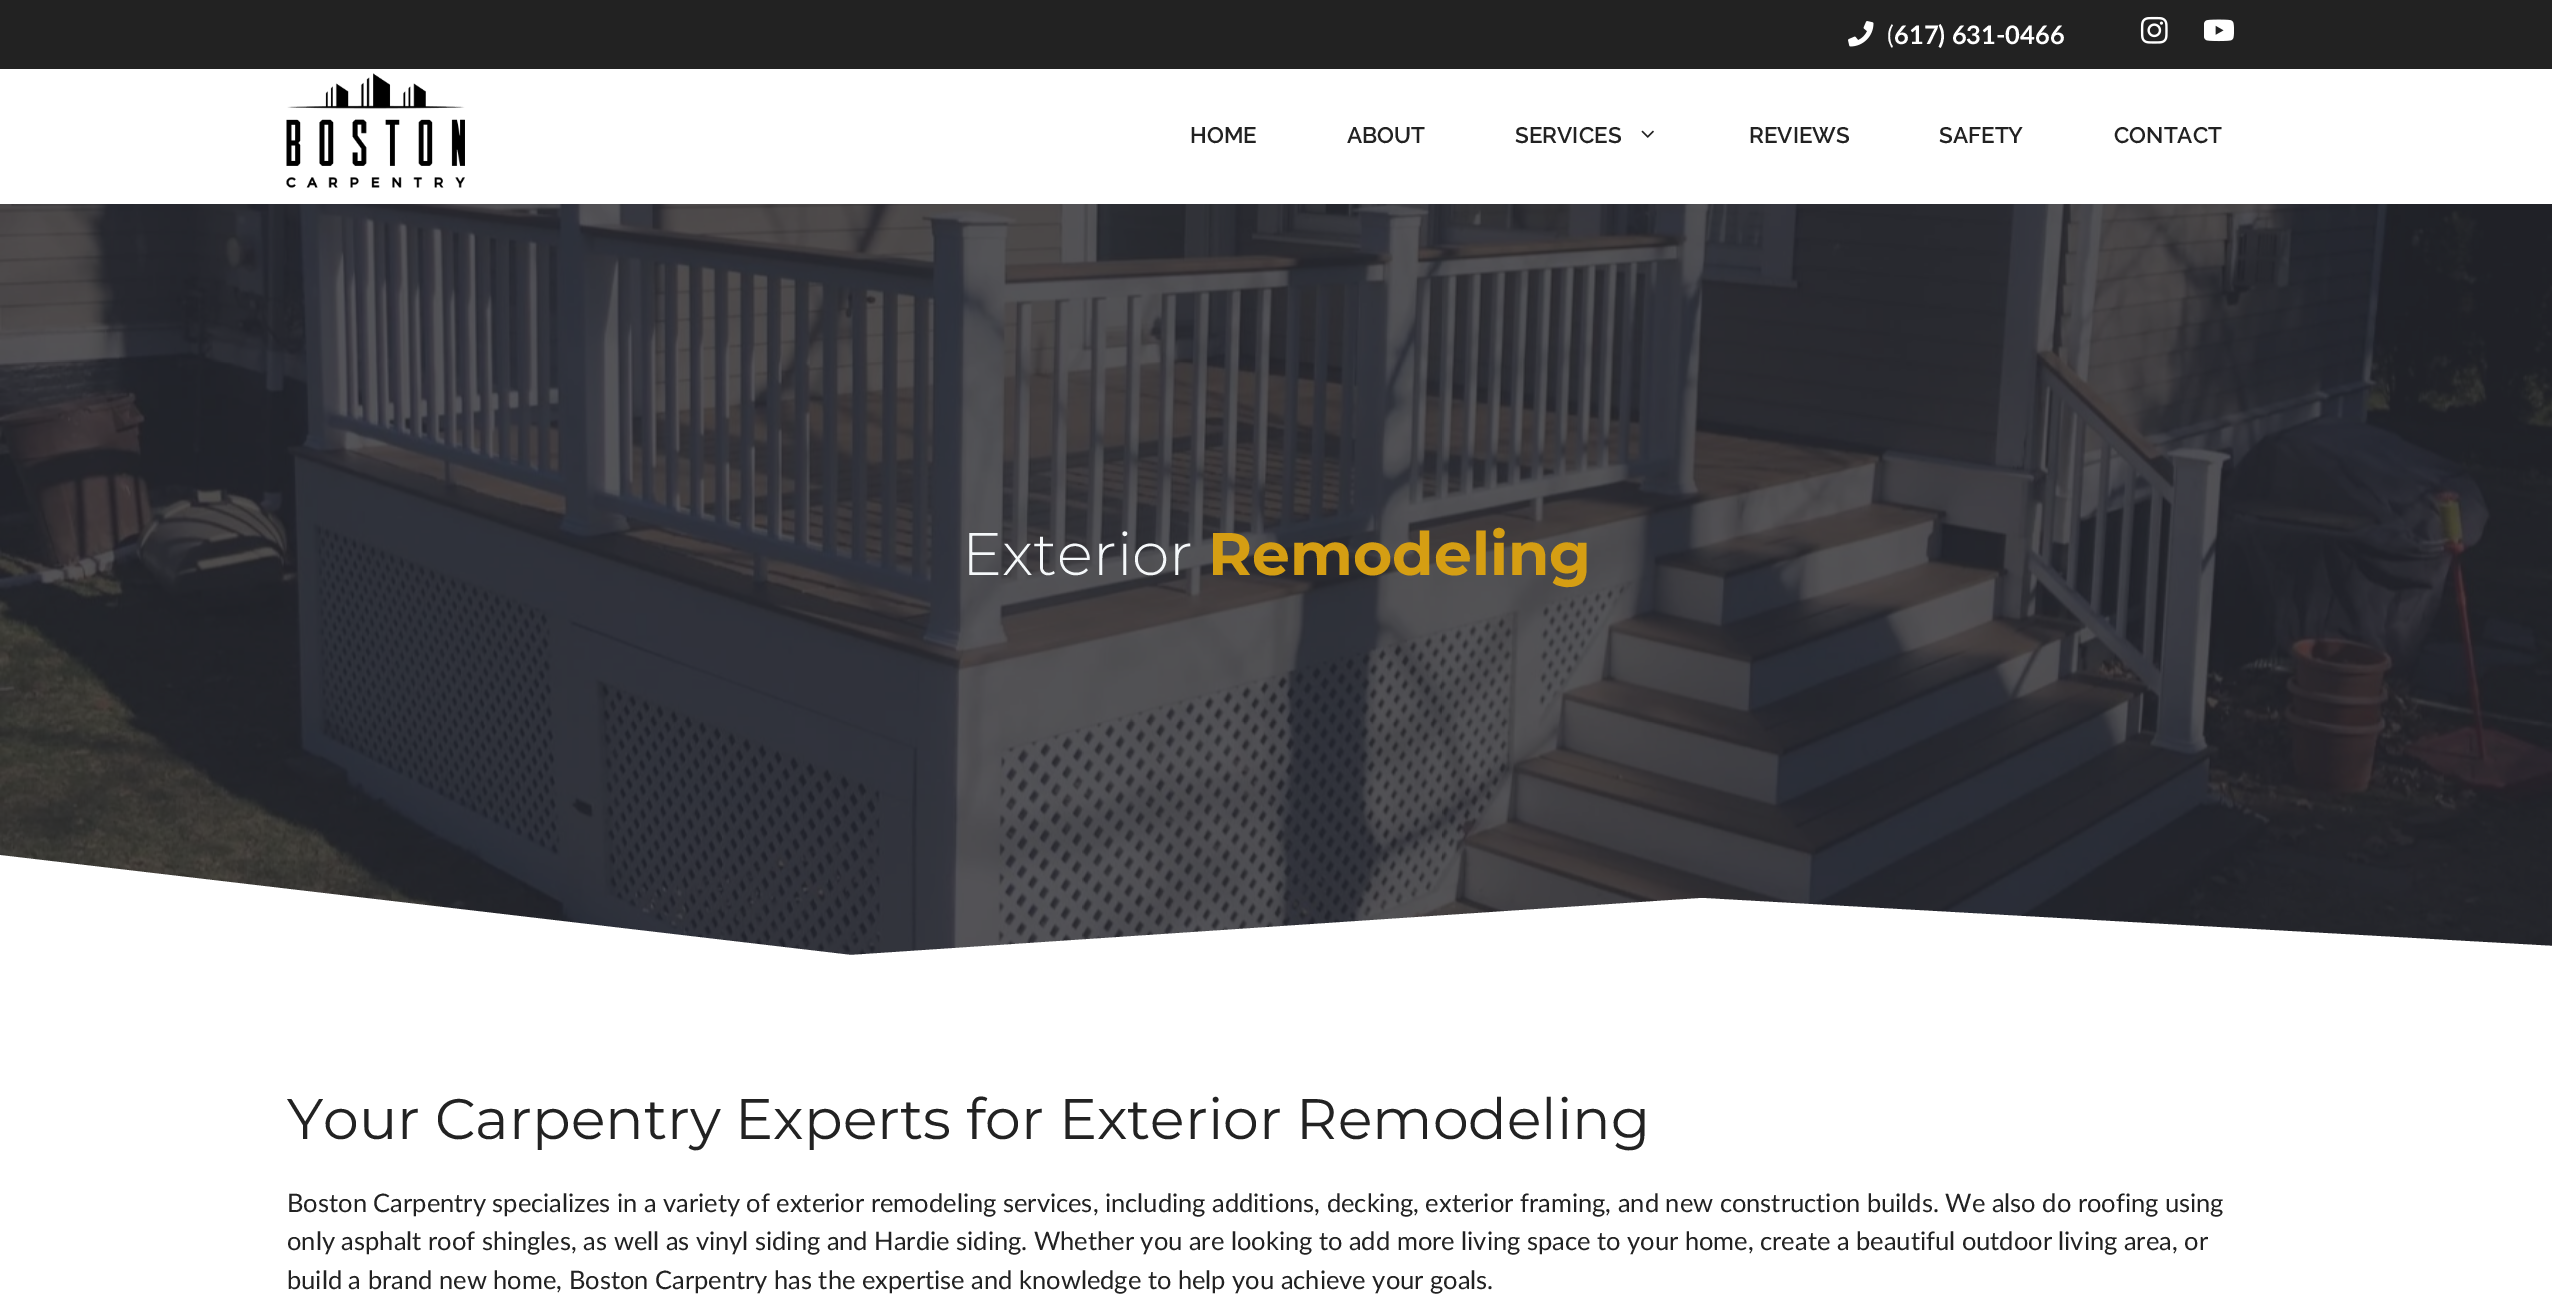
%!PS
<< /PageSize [2552 1314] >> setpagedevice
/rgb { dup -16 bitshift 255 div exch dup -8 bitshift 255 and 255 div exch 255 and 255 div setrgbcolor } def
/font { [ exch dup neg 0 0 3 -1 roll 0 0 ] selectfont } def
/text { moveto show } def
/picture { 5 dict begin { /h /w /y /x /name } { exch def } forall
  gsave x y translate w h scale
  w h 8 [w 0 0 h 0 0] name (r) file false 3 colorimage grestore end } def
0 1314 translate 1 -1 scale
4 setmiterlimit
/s1 { /Lato-Regular 25.5 font 16#FFFFFF rgb } def
/s2 { /Lato-Bold 25.5 font 16#FFFFFF rgb } def
/s3 { /Raleway-SemiBold 22.5 font 16#222222 rgb } def
/s4 { /Montserrat-Light 60 font 16#F5F8FA rgb } def
/s5 { /Montserrat-Bold 60 font 16#D59E13 rgb } def
/s6 { /Montserrat-Regular 57 font 16#222222 rgb } def
/s7 { /Lato-Regular 25.5 font 16#222222 rgb } def
16#FFFFFF rgb
0 0 2552 1314 rectfill
16#222222 rgb
0 0 2552 69 rectfill
(pic1.raw) 1848 21 26 26 picture
s1
(\() 1887 44 text
s2
(617\) 631-0466) 1894 44 text
(pic2.raw) 2140 16 28 28 picture
(pic3.raw) 2204 19 30 23 picture
(pic4.raw) 286 73 179 115 picture
s3
(HOME) 1190 143 text
(ABOUT) 1347 143 text
(SERVICES) 1515 143 text
(pic5.raw) 1641 130 13 8 picture
(REVIEWS) 1749 143 text
(SAFETY) 1939 143 text
(CONTACT) 2114 143 text
16#282931 rgb
0 204 2552 751 rectfill
(pic6.raw) 0 204 2552 751 picture
s4
(Exterior) 962 575 text
s5
(Remodeling) 1208 575 text
gsave
0 855 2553 111 rectclip
16#FFFFFF rgb
-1 855 moveto 851 955 lineto 1702 898 lineto 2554 946 lineto 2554 968 lineto -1 968 lineto closepath fill
grestore
s6
(Your Carpentry Experts for Exterior Remodeling) 287 1139 text
s7
(Boston Carpentry specializes in a variety of exterior remodeling services, including additions, decking, exterior framing, and new construction builds. We also do roofing using) 287 1212 text
(only asphalt roof shingles, as well as vinyl siding and Hardie siding. Whether you are looking to add more living space to your home, create a beautiful outdoor living area, or) 287 1250 text
(build a brand new home, Boston Carpentry has the expertise and knowledge to help you achieve your goals.) 287 1289 text
showpage
